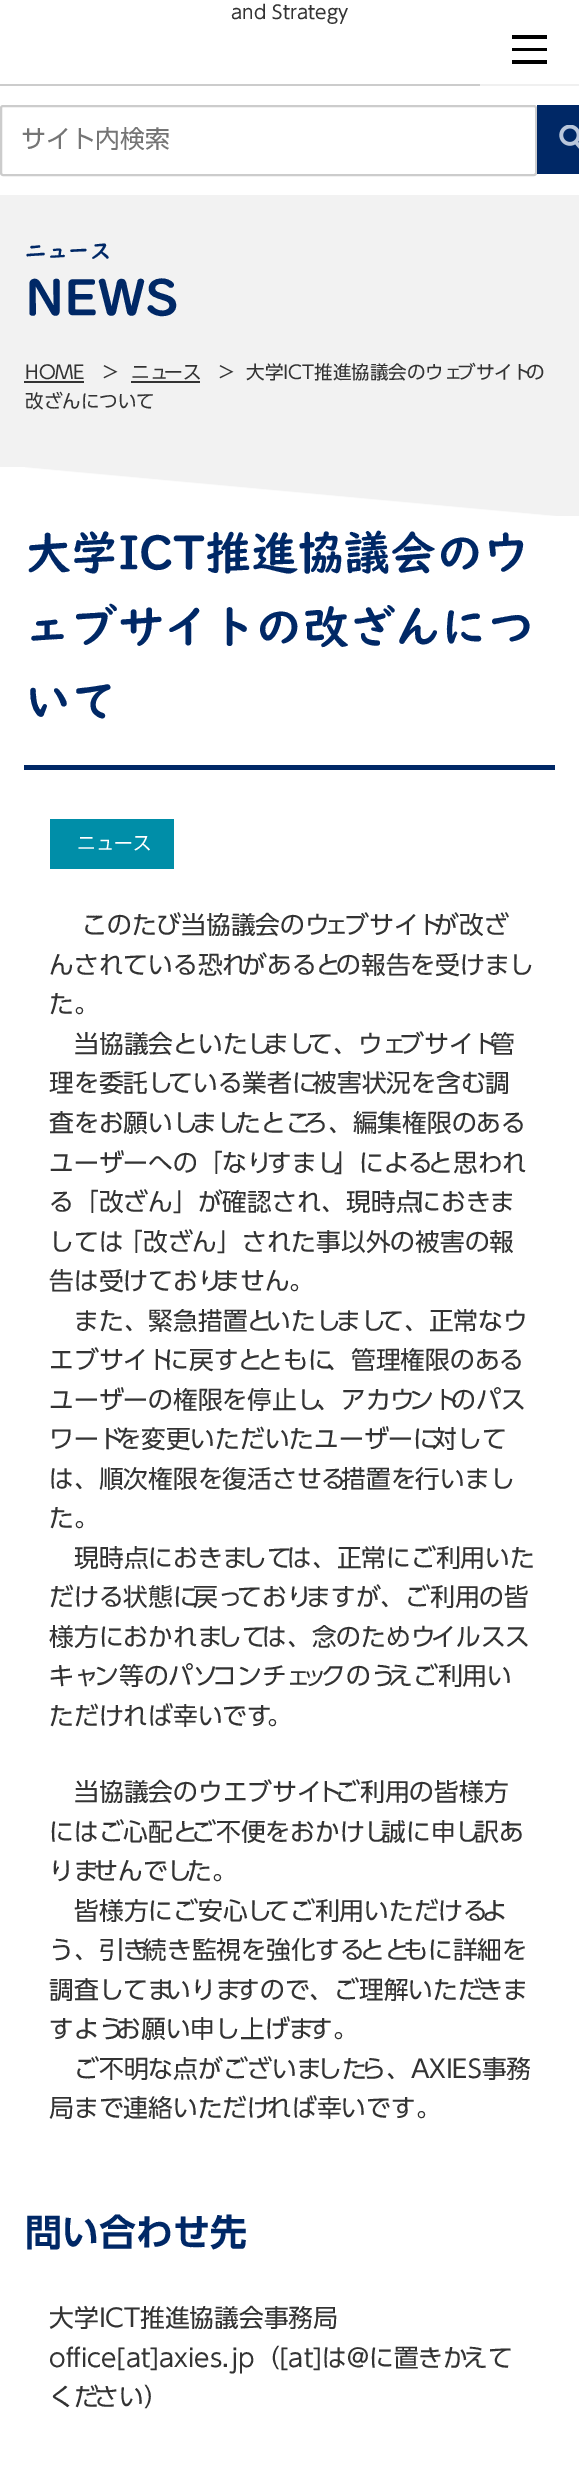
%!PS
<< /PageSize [579 2468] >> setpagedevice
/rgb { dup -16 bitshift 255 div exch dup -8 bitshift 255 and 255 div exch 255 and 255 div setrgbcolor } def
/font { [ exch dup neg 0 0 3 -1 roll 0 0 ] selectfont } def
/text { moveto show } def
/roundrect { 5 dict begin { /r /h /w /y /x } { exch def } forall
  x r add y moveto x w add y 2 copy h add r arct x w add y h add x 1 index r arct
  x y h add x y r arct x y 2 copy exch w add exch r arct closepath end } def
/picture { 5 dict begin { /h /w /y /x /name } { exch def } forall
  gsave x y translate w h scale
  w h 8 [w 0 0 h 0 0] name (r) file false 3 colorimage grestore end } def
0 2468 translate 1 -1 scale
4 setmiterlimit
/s1 { /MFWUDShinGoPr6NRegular-Regular 18.5 font 16#333333 rgb } def
/s2 { /MFWUDShinGoPr6NRegular-Regular 24.75 font 16#757575 rgb } def
/s3 { /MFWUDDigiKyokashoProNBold-Bold 21.5 font 16#002866 rgb } def
/s4 { /MFWUDDigiKyokashoProNBold-Bold 49.5 font 16#002866 rgb } def
/s5 { /MFWUDDigiKyokashoProNBold-Bold 46.25 font 16#002866 rgb } def
/s6 { /MFWUDShinGoPr6NRegular-Regular 18.5 font 16#FFFFFF rgb } def
/s7 { /MFWUDShinGoPr6NRegular-Regular 24.75 font 16#333333 rgb } def
/s8 { /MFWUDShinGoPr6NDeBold-SemiBold 37 font 16#002866 rgb } def
16#FFFFFF rgb
0 0 579 2468 rectfill
16#CCCCCC rgb
0 84 480 2 rectfill
16#F0F0F0 rgb
480 84 99 2 rectfill
s1
(and Strategy) 231 19 text
16#F2F2F2 rgb
0 195 579 272 rectfill
16#CCCCCC rgb
2 setlinewidth
1 106 535 69 2 roundrect stroke
s2
(サイト内検索) 21 148 text
16#002866 rgb
537 105 42 69 rectfill
(pic1.raw) 559 125 20 24 picture
s3
(ニュース) 25 259 text
s4
(NEWS) 25 316 text
s1
(HOME) 25 379 text
24 381 60 2 rectfill
(>) 103 379 text
(ニュ) 131 379 text
(ース) 164 379 text
131 381 69 2 rectfill
(>) 219 379 text
(大学ICT推進協議会のウェ) 246 379 text
(ブサイト) 457 379 text
(の) 526 379 text
(改ざんについて) 25 408 text
gsave 25 467 moveto 579 467 lineto 579 516 lineto 25 516 lineto closepath clip newpath
<< /ShadingType 2 /ColorSpace /DeviceRGB /Coords [294 442 285 540] /Extend [true true] /Function << /FunctionType 3 /Domain [0 1] /Functions [<< /FunctionType 2 /Domain [0 1] /C0 [0.949 0.949 0.949] /C1 [0.949 0.949 0.949] /N 1 >> << /FunctionType 2 /Domain [0 1] /C0 [0.949 0.949 0.949] /C1 [1 1 1] /N 1 >> << /FunctionType 2 /Domain [0 1] /C0 [1 1 1] /C1 [1 1 1] /N 1 >>] /Bounds [0.5 0.51] /Encode [0 1 0 1 0 1] >> >> shfill grestore
s5
(大学ICT推進協議会のウ) 25 570 text
(ェブサイトの改ざんにつ) 25 644 text
(いて) 25 718 text
24 765 531 5 rectfill
16#008EA8 rgb
50 819 124 50 rectfill
s6
(ニュース) 77 850 text
s7
(このたび当協議会のウ) 82 934 text
(ェ) 324 934 text
(ブサイト) 344 934 text
(が改ざ) 434 934 text
(んされている恐れ) 49 974 text
(があると) 242 974 text
(の報告を受けまし) 336 974 text
(た。) 49 1013 text
(当協議会といたし) 74 1053 text
(まし) 264 1053 text
(て、ウェ) 308 1053 text
(ブサイト) 399 1053 text
(管) 490 1053 text
(理を委託し) 49 1092 text
(ている業者に) 168 1092 text
(被害状況を含む調) 312 1092 text
(査をお願いし) 49 1132 text
(まし) 192 1132 text
(たとこ) 236 1132 text
(ろ、編集権限のある) 303 1132 text
(ユーザーへの「なり) 49 1172 text
(すまし) 267 1172 text
(」による) 334 1172 text
(と思われ) 428 1172 text
(る「改ざん」が確認され、現時点) 49 1211 text
(におきま) 416 1211 text
(しては) 49 1251 text
(「改ざん」された事以外の被害の報) 118 1251 text
(告は受けており) 49 1290 text
(ません。) 215 1290 text
(また、緊急措置と) 74 1330 text
(いたし) 266 1330 text
(まし) 336 1330 text
(て、正常なウ) 379 1330 text
(エブサイト) 49 1369 text
(に戻すと) 164 1369 text
(ともに) 258 1369 text
(、管理権限のある) 326 1369 text
(ユーザーの権限を停止し) 49 1409 text
(、アカウ) 316 1409 text
(ント) 409 1409 text
(のパス) 451 1409 text
(ワード) 49 1448 text
(を変更いただいたユーザーに) 116 1448 text
(対して) 432 1448 text
(は、順次権限を復活させる) 49 1488 text
(措置を行いまし) 341 1488 text
(た。) 49 1527 text
(現時点におきま) 74 1567 text
(して) 242 1567 text
(は、正常にご利用いた) 287 1567 text
(だける状態に) 49 1606 text
(戻っ) 193 1606 text
(ており) 237 1606 text
(ますが、ご利用の皆) 306 1606 text
(様方におかれま) 49 1646 text
(して) 217 1646 text
(は、念のためウ) 262 1646 text
(イルスス) 431 1646 text
(キャ) 49 1685 text
(ン等のパソ) 94 1685 text
(コンチェ) 212 1685 text
(ッ) 302 1685 text
(クのう) 321 1685 text
(えご利用い) 388 1685 text
(ただければ幸いです) 49 1725 text
(。) 267 1725 text
(当協議会のウエブサイ) 74 1801 text
(ト) 317 1801 text
(ご利用の皆様方) 335 1801 text
(にはご心配と) 49 1841 text
(ご不便をおかけし) 191 1841 text
(誠に申し) 381 1841 text
(訳あ) 474 1841 text
(りま) 49 1880 text
(せんでし) 93 1880 text
(た。) 187 1880 text
(皆様方にご安心し) 74 1920 text
(てご利用いただける) 265 1920 text
(よ) 482 1920 text
(う、引き) 49 1959 text
(続き監視を強化する) 142 1959 text
(とと) 360 1959 text
(もに詳細を) 403 1959 text
(調査してま) 49 1999 text
(いりま) 166 1999 text
(すので、ご理解いただ) 235 1999 text
(きま) 478 1999 text
(すよう) 49 2038 text
(お願い申し上げま) 116 2038 text
(す。) 308 2038 text
(ご不明な点がございま) 74 2078 text
(した) 317 2078 text
(ら、AXIES事務) 361 2078 text
(局まで連絡いただけ) 49 2117 text
(れば幸いです。) 267 2117 text
s8
(問い合わせ先) 25 2246 text
s7
(大学ICT推進協議会事務局) 49 2327 text
(office[at]axies.jp（[at]は@に置きか) 49 2367 text
(えて) 463 2367 text
(くだ) 49 2406 text
(さい）) 94 2406 text
16#000000 rgb
512 35 35 4 rectfill
512 48 35 3 rectfill
512 60 35 4 rectfill
showpage
